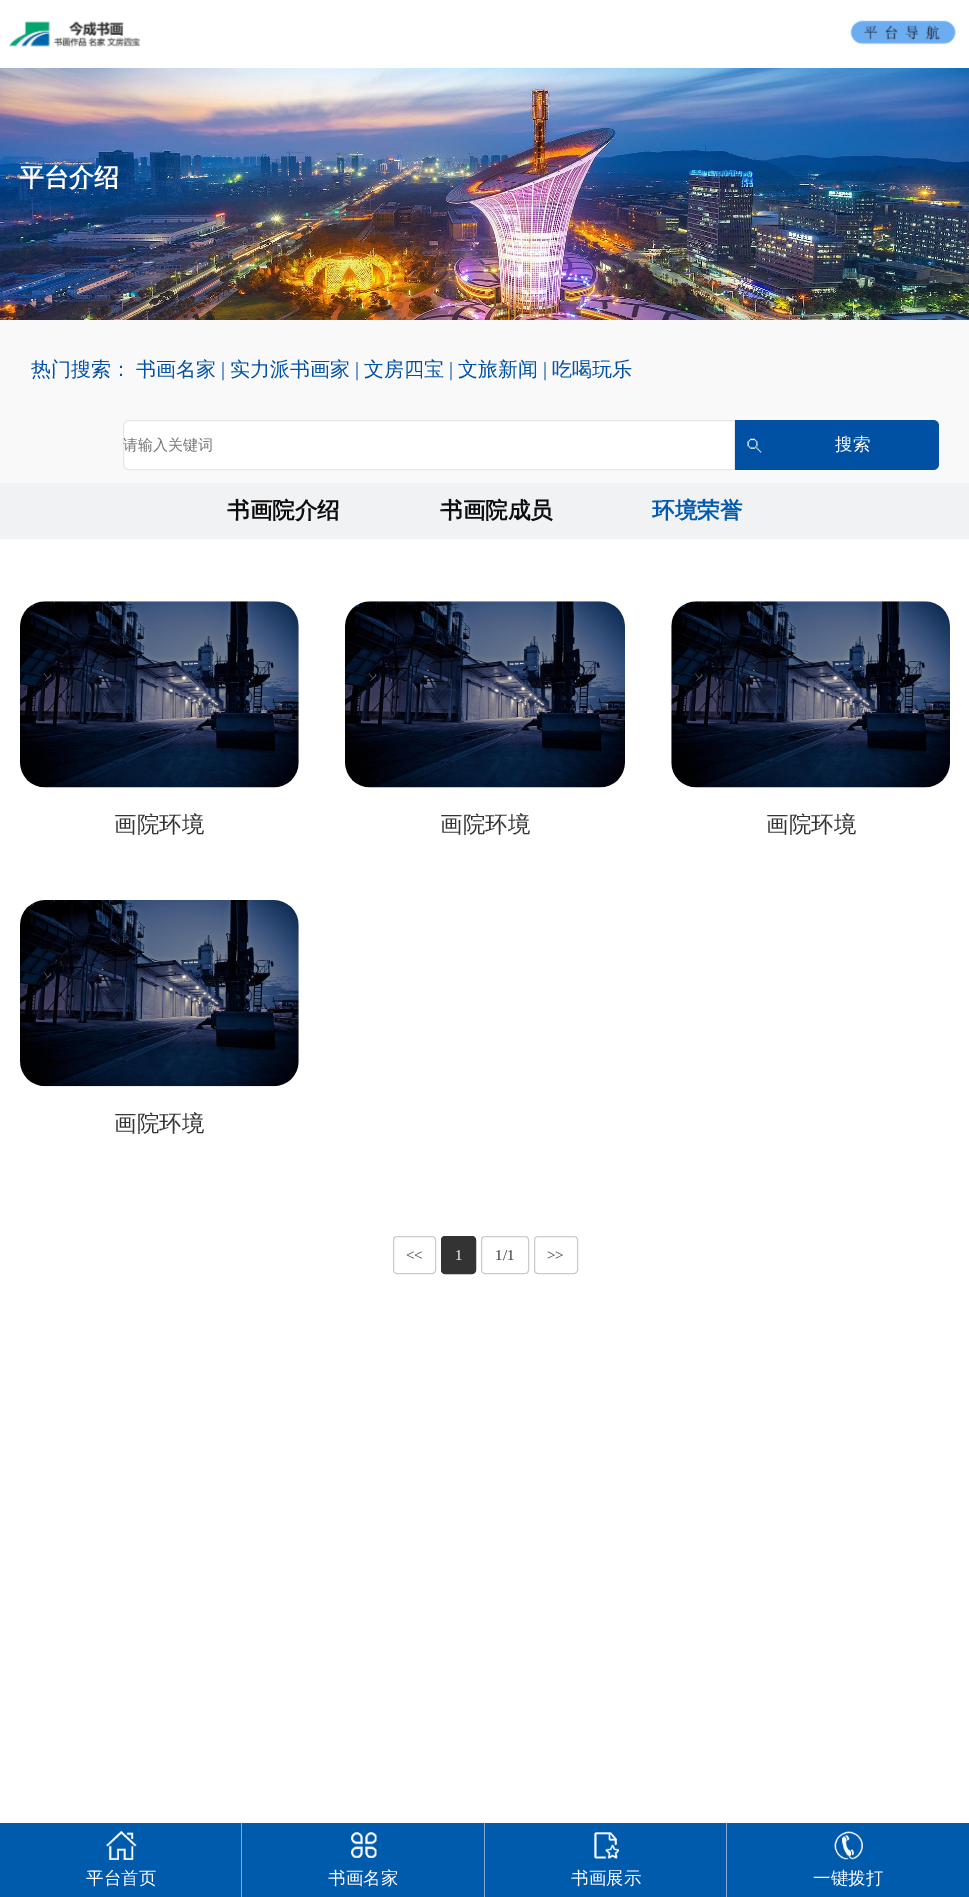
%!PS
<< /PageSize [969 1897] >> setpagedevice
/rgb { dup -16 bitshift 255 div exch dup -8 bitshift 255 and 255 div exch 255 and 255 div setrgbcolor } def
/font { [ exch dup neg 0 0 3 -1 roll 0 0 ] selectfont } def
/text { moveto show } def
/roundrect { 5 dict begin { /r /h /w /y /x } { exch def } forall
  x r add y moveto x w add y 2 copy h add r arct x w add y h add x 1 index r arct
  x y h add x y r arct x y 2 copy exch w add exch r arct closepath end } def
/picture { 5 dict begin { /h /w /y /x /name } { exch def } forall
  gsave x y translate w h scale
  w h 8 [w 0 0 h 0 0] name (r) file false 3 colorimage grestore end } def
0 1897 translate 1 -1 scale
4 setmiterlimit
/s1 { /WenQuanYiZenHei-Bold 25 font 16#FFFFFF rgb } def
/s2 { /WenQuanYiZenHei-Medium 20 font 16#0051A3 rgb } def
/s3 { /LiberationSerif-Regular 20 font 16#0051A3 rgb } def
/s4 { /WenQuanYiZenHei-Medium 15 font 16#757575 rgb } def
/s5 { /WenQuanYiZenHei-Medium 17.5 font 16#FFFFFF rgb } def
/s6 { /WenQuanYiZenHei-Bold 22.5 font 16#0E0E0E rgb } def
/s7 { /WenQuanYiZenHei-Bold 22.5 font 16#005BAD rgb } def
/s8 { /WenQuanYiZenHei-Medium 22.5 font 16#333333 rgb } def
/s9 { /LiberationSerif-Regular 15 font 16#333333 rgb } def
/s10 { /LiberationSerif-Regular 15 font 16#FFFFFF rgb } def
16#FFFFFF rgb
0 0 969 1897 rectfill
(pic1.raw) 9 21 132 26 picture
(pic2.raw) 850 20 106 25 picture
(pic3.raw) 0 68 969 252 picture
s1
(平台介绍) 19 186 text
16#F9F9F9 rgb
0 320 969 163 rectfill
s2
(热门搜索：) 31 376 text
(书画名家) 136 376 text
s3
(|) 221 376 text
s2
(实力派书画家) 230 376 text
s3
(|) 355 376 text
s2
(文房四宝) 364 376 text
s3
(|) 449 376 text
s2
(文旅新闻) 458 376 text
s3
(|) 543 376 text
s2
(吃喝玩乐) 552 376 text
16#FFFFFF rgb
129 420.5 moveto 734.5 420.5 lineto 734.5 469.5 lineto 129 469.5 lineto 126 469.5 123.5 467 123.5 464 curveto 123.5 426 lineto 123.5 423 126 420.5 129 420.5 curveto closepath gsave fill grestore
16#E7E7E7 rgb
stroke
s4
(请输入关键词) 123 450 text
16#0051A3 rgb
735 420 moveto 933 420 lineto 936.5 420 939 422.5 939 426 curveto 939 464 lineto 939 467.5 936.5 470 933 470 curveto 735 470 lineto closepath fill
(pic4.raw) 747 438 15 15 picture
s5
(搜索) 835 450 text
16#F1F2F4 rgb
0 483 969 56 rectfill
s6
(书画院介绍) 227 518 text
(书画院成员) 440 518 text
s7
(环境荣誉) 652 518 text
(pic5.raw) 20 601 279 187 picture
s8
(画院环境) 114 832 text
(pic6.raw) 345 601 280 187 picture
(画院环境) 440 832 text
(pic7.raw) 671 601 279 187 picture
(画院环境) 766 832 text
(pic8.raw) 20 900 279 187 picture
(画院环境) 114 1131 text
16#CCCCCC rgb
393.5 1236.5 42 37 3.5 roundrect stroke
s9
(<<) 406 1260 text
441.5 1236.5 34 37 3.5 roundrect gsave fill grestore
stroke
s10
(1) 455 1260 text
16#CCCCCC rgb
481.5 1236.5 47 37 3.5 roundrect stroke
s9
(1/1) 495 1260 text
16#CCCCCC rgb
534.5 1236.5 43 37 3.5 roundrect stroke
s9
(>>) 547 1260 text
16#005BAD rgb
0 1823 969 74 rectfill
16#80ADD6 rgb
241 1823 1 74 rectfill
(pic9.raw) 106 1830 31 30 picture
s5
(平台首页) 86 1884 text
16#80ADD6 rgb
484 1823 1 74 rectfill
(pic10.raw) 351 1832 26 26 picture
s5
(书画名家) 328 1884 text
16#80ADD6 rgb
726 1823 1 74 rectfill
(pic11.raw) 594 1832 25 27 picture
s5
(书画展示) 571 1884 text
(pic12.raw) 834 1831 29 29 picture
(一键拨打) 813 1884 text
showpage
